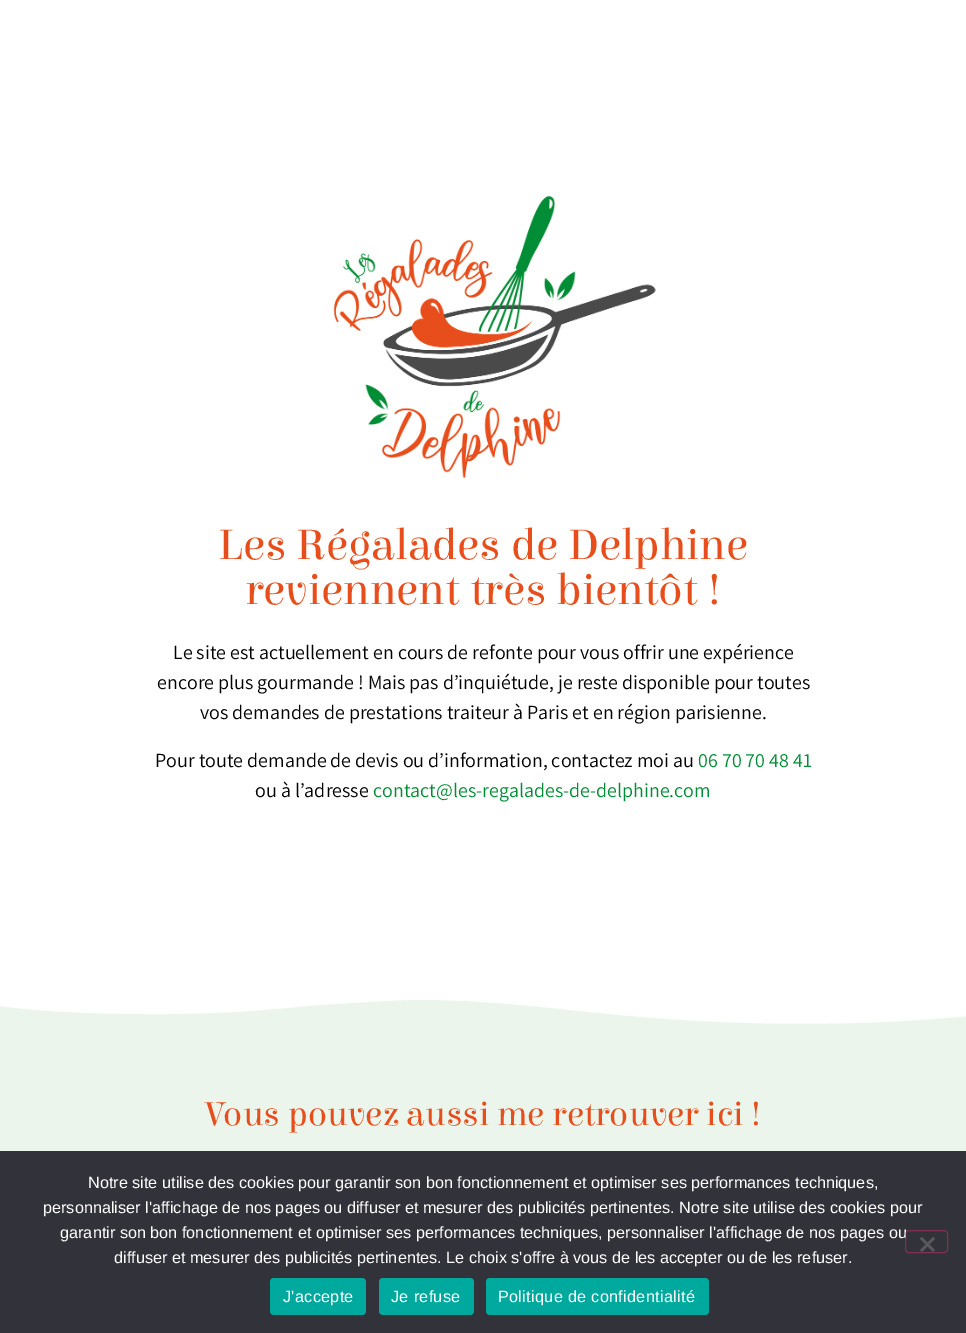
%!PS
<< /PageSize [966 1333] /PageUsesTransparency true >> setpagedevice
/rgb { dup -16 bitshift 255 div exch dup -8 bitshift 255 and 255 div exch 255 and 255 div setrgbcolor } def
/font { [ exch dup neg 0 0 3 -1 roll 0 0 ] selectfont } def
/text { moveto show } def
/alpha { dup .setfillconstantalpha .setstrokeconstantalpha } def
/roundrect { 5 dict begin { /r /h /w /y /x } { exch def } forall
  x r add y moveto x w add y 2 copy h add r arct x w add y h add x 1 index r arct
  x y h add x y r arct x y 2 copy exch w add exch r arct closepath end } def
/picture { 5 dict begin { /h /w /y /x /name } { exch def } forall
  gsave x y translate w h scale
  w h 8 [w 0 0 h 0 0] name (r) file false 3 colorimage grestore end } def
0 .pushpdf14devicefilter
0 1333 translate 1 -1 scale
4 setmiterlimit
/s1 { /Elsie-Regular 45 font 16#E84E1B rgb } def
/s2 { /Assistant-Regular 20 font 16#000000 rgb } def
/s3 { /Assistant-Regular 20 font 16#008D36 rgb } def
/s4 { /Elsie-Regular 35 font 16#E84E1B rgb } def
/s5 { /LiberationSans-Regular 16.25 font 16#FFFFFF rgb } def
16#FFFFFF rgb
0 0 966 1333 rectfill
(pic1.raw) 333 195 323 284 picture
s1
(Les Régalades de Delphine) 218 559 text
(reviennent très bientôt !) 245 604 text
s2
(Le site est actuellement en cours de refonte pour vous offrir une expérience) 173 659 text
(encore plus gourmande ! Mais pas d’inquiétude, je reste disponible pour toutes) 157 689 text
(vos demandes de prestations traiteur à Paris et en région parisienne.) 200 719 text
(Pour toute demande de devis ou d’information, contactez moi au) 155 767 text
s3
(06 70 70 48 41) 698 767 text
s2
(ou à l’adresse) 255 797 text
s3
(contact@les-regalades-de-delphine.com) 373 797 text
16#EBF5EB rgb
0 1000 966 151 rectfill
16#FFFFFF rgb
408 1000 moveto 491 998 573 1012 655 1018 curveto 759 1026 864 1026 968 1016 curveto 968 999 lineto 0 999 lineto 0 1006 lineto 22 1009 45 1011 68 1012 curveto 129 1015 190 1015 251 1011 curveto 319 1005 lineto 349 1003 378 1001 408 1000 curveto closepath fill
s4
(Vous pouvez aussi me retrouver ici !) 206 1125 text
16#32323A rgb
0 1151 966 182 rectfill
s5
(Notre site utilise des cookies pour garantir son bon fonctionnement et optimiser ses performances techniques,) 88 1188 text
(personnaliser l'affichage de nos pages ou diffuser et mesurer des publicités pertinentes. Notre site utilise des cookies pour) 43 1213 text
(garantir son bon fonctionnement et optimiser ses performances techniques, personnaliser l'affichage de nos pages ou) 60 1238 text
(diffuser et mesurer des publicités pertinentes. Le choix s'offre à vous de les accepter ou de les refuser.) 114 1263 text
0.5 alpha
16#CC3366 rgb
905.5 1230.5 42 22 3.5 roundrect stroke
1 alpha
16#59595D rgb
933 1237 moveto 935 1238.5 lineto 922 1252 lineto 920 1250 lineto closepath fill
920 1238.5 moveto 922 1237 lineto 935 1250 lineto 933 1252 lineto closepath fill
16#00A99D rgb
270 1278 96 37 4 roundrect fill
16#FFFFFF rgb
283 1302 moveto 0.3 0 (J'accepte) ashow
16#00A99D rgb
379 1278 95 37 4 roundrect fill
16#FFFFFF rgb
391 1302 moveto 0.3 0 (Je refuse) ashow
16#00A99D rgb
486 1278 223 37 4 roundrect fill
16#FFFFFF rgb
498 1302 moveto 0.3 0 (Politique de confidentialité) ashow
.poppdf14devicefilter showpage
